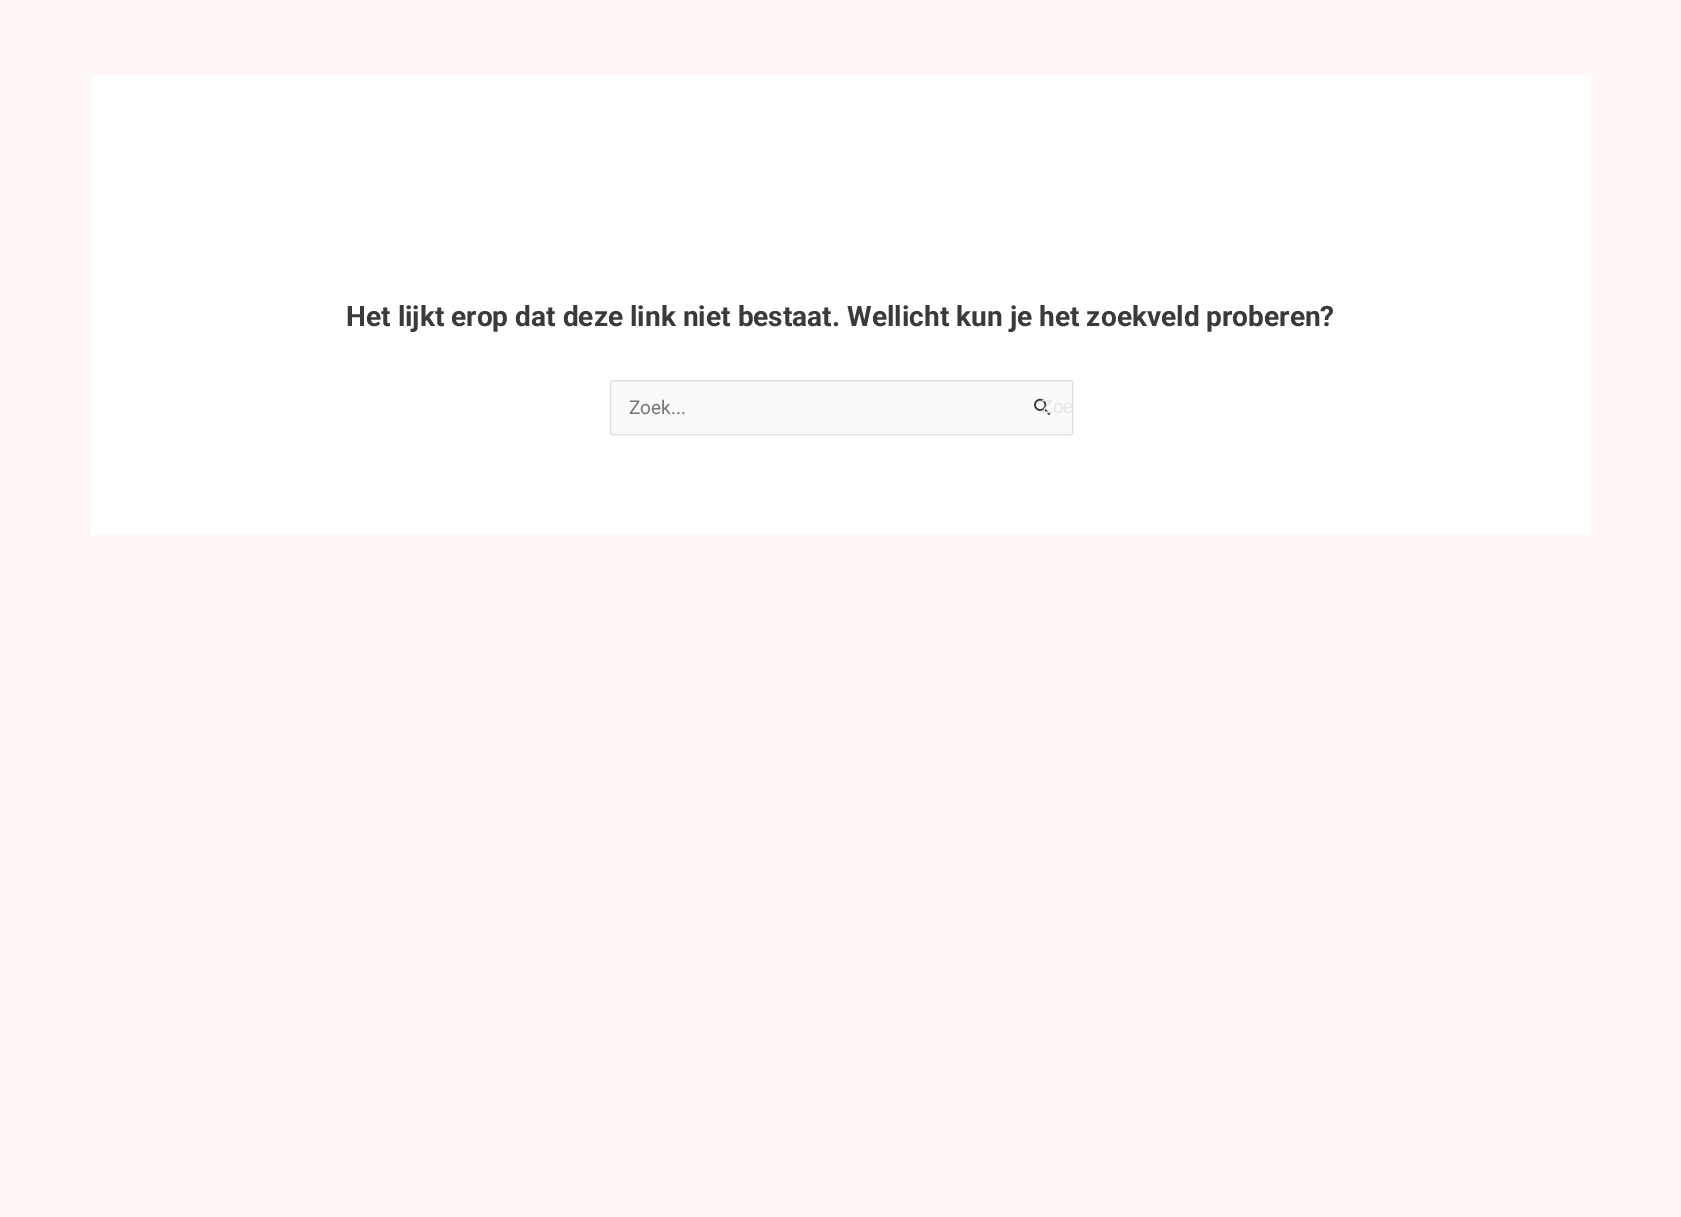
%!PS
<< /PageSize [1681 1217] >> setpagedevice
/rgb { dup -16 bitshift 255 div exch dup -8 bitshift 255 and 255 div exch 255 and 255 div setrgbcolor } def
/font { [ exch dup neg 0 0 3 -1 roll 0 0 ] selectfont } def
/text { moveto show } def
/roundrect { 5 dict begin { /r /h /w /y /x } { exch def } forall
  x r add y moveto x w add y 2 copy h add r arct x w add y h add x 1 index r arct
  x y h add x y r arct x y 2 copy exch w add exch r arct closepath end } def
/picture { 5 dict begin { /h /w /y /x /name } { exch def } forall
  gsave x y translate w h scale
  w h 8 [w 0 0 h 0 0] name (r) file false 3 colorimage grestore end } def
0 1217 translate 1 -1 scale
4 setmiterlimit
/s1 { /Roboto-Bold 28.1 font 16#3A3A3A rgb } def
/s2 { /Roboto-Regular 19 font 16#757575 rgb } def
/s3 { /LiberationSans-Regular 19 font 16#E6E6E6 rgb } def
16#FFFFFF rgb
0 0 1681 1217 rectfill
gsave 0 0 moveto 1681 0 lineto 1681 610 lineto 0 610 lineto closepath clip newpath 1681 0 translate 2378 863 scale
<< /ShadingType 3 /ColorSpace /DeviceRGB /Coords [0 0 0 0 0 1] /Extend [true true] /Function << /FunctionType 2 /Domain [0 1] /C0 [1 0.965 0.965] /C1 [1 0.965 0.965] /N 1 >> >> shfill grestore
gsave 0 610 moveto 1681 610 lineto 1681 1217 lineto 0 1217 lineto closepath clip newpath 1681 610 translate 2378 863 scale
<< /ShadingType 3 /ColorSpace /DeviceRGB /Coords [0 0 0 0 0 1] /Extend [true true] /Function << /FunctionType 2 /Domain [0 1] /C0 [1 0.965 0.965] /C1 [1 0.965 0.965] /N 1 >> >> shfill grestore
91 75 1500 460 rectfill
s1
(Het lijkt erop dat deze link niet bestaat. Wellicht kun je het zoekveld proberen?) 346 326 text
16#FAFAFA rgb
610.5 380.5 462 54 2 roundrect gsave fill grestore
16#DDDDDD rgb
stroke
s2
(Zoek...) 629 414 text
(pic1.raw) 1034 398 17 18 picture
s3
(Zoe) 1041 413 text
showpage
